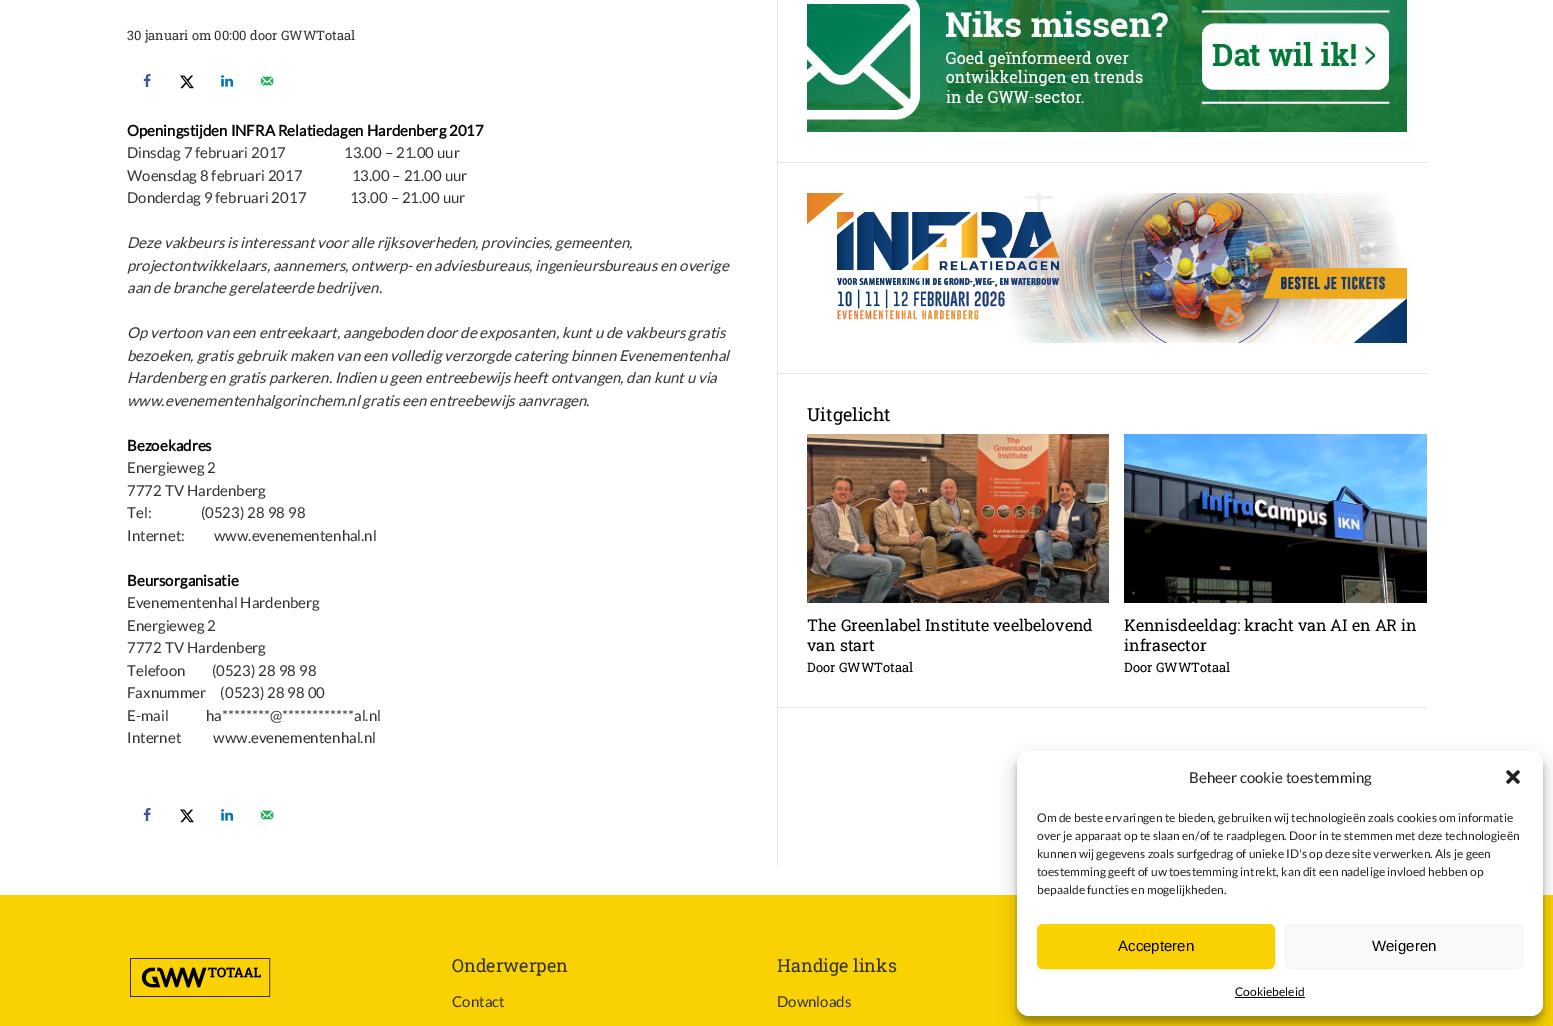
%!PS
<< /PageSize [1553 1026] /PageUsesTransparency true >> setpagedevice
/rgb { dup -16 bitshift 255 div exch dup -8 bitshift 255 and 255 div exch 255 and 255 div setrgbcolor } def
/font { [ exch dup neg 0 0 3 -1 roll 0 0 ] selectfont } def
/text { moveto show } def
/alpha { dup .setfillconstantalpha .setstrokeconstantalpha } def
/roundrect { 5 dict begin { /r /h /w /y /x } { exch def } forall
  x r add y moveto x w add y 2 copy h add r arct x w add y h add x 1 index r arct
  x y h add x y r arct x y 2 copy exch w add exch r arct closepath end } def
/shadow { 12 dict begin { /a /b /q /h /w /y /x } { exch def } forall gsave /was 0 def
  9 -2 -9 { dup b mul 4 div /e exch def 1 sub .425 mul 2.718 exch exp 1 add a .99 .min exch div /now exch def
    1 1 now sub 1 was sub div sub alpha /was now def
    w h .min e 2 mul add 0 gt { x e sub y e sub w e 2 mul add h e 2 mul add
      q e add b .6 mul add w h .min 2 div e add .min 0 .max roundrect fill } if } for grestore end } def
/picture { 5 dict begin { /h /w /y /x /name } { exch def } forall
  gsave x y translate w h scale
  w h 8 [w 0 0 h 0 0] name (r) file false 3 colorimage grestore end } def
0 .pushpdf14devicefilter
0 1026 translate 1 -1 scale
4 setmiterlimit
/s1 { /RobotoSlab-Regular 13 font 16#333333 rgb } def
/s2 { /Lato-Bold 15 font 16#000000 rgb } def
/s3 { /Lato-Regular 15 font 16#333333 rgb } def
/s4 { /Lato-Italic 15 font 16#333333 rgb } def
/s5 { /RobotoSlab-Regular 18 font 16#000000 rgb } def
/s6 { /RobotoSlab-Regular 16 font 16#000000 rgb } def
/s7 { /RobotoSlab-Regular 13 font 16#000000 rgb } def
/s8 { /RobotoSlab-Regular 18 font 16#333333 rgb } def
/s9 { /Lato-Regular 15 font 16#222222 rgb } def
/s10 { /Lato-Regular 12 font 16#222222 rgb } def
/s11 { /LiberationSans-Regular 15 font 16#000000 rgb } def
/s12 { /Lato-Regular 12 font 16#000000 rgb } def
16#FFFFFF rgb
0 0 1553 1026 rectfill
s1
(30 januari om 00:00 door GWWTotaal) 127 40 text
(pic1.raw) 143 74 8 13 picture
(pic2.raw) 180 75 14 14 picture
(pic3.raw) 221 75 13 12 picture
(pic4.raw) 260 76 14 10 picture
s2
(Openingstijden INFRA Relatiedagen Hardenberg 2017) 127 136 text
s3
(Dinsdag 7 februari 2017                    13.00 – 21.00 uur) 127 158 text
(Woensdag 8 februari 2017                 13.00 – 21.00 uur) 127 181 text
(Donderdag 9 februari 2017               13.00 – 21.00 uur) 127 203 text
s4
(Deze vakbeurs is interessant voor alle rijksoverheden, provincies, gemeenten,) 127 248 text
(projectontwikkelaars, aannemers, ontwerp- en adviesbureaus, ingenieursbureaus en overige) 127 271 text
(aan de branche gerelateerde bedrijven.) 127 293 text
(Op vertoon van een entreekaart, aangeboden door de exposanten, kunt u de vakbeurs gratis) 127 338 text
(bezoeken, gratis gebruik maken van een volledig verzorgde catering binnen Evenementenhal) 127 361 text
(Hardenberg en gratis parkeren. Indien u geen entreebewijs heeft ontvangen, dan kunt u via) 127 383 text
(www.evenementenhalgorinchem.nl gratis een entreebewijs aanvragen.) 127 406 text
s2
(Bezoekadres) 127 451 text
s3
(Energieweg 2) 127 473 text
(7772 TV Hardenberg) 127 496 text
(Tel:                 \(0523\) 28 98 98) 127 518 text
(Internet:          www.evenementenhal.nl) 127 541 text
s2
(Beursorganisatie) 127 586 text
s3
(Evenementenhal Hardenberg) 127 608 text
(Energieweg 2) 127 631 text
(7772 TV Hardenberg) 127 653 text
(Telefoon         \(0523\) 28 98 98) 127 676 text
(Faxnummer     \(0523\) 28 98 00) 127 698 text
(E-mail) 127 721 text
(ha********) 206 721 text
(@************) 270 721 text
(al.nl) 354 721 text
(Internet           www.evenementenhal.nl) 127 743 text
(pic1.raw) 143 808 8 13 picture
(pic2.raw) 180 809 14 14 picture
(pic3.raw) 221 809 13 12 picture
(pic4.raw) 260 810 14 10 picture
16#E4E4E4 rgb
777 162 650 1 rectfill
777 373 650 1 rectfill
777 707 650 1 rectfill
777 0 1 865 rectfill
(pic5.raw) 807 0 600 132 picture
(pic6.raw) 807 193 600 150 picture
s5
(Uitgelicht) 807 421 text
(pic7.raw) 807 434 302 169 picture
s6
(The Greenlabel Institute veelbelovend) 807 631 text
(van start) 807 651 text
s7
(Door GWWTotaal) 807 672 text
(pic8.raw) 1124 434 303 169 picture
s6
(Kennisdeeldag: kracht van AI en AR in) 1124 631 text
(infrasector) 1124 651 text
s7
(Door GWWTotaal) 1124 672 text
16#FAD203 rgb
0 895 1553 131 rectfill
(pic9.raw) 130 958 141 39 picture
s8
(Onderwerpen) 452 972 text
s3
(Contact) 452 1007 text
s8
(Handige links) 777 972 text
s3
(Downloads) 777 1007 text
16#000000 rgb
1017 757 526 265 12 3 0.23 shadow
1017 761 526 265 12 10 0.19 shadow
16#FFFFFF rgb
1017 751 526 265 12 roundrect fill
s9
(Beheer cookie toestemming) 1189 783 text
(pic10.raw) 1506 770 14 14 picture
s10
(Om de beste ervaringen te bieden, gebruiken wij technologieën zoals cookies om informatie) 1037 822 text
(over je apparaat op te slaan en/of te raadplegen. Door in te stemmen met deze technologieën) 1037 840 text
(kunnen wij gegevens zoals surfgedrag of unieke ID's op deze site verwerken. Als je geen) 1037 858 text
(toestemming geeft of uw toestemming intrekt, kan dit een nadelige invloed hebben op) 1037 876 text
(bepaalde functies en mogelijkheden.) 1037 894 text
16#FAD203 rgb
1037.5 924.5 237 44 5.5 roundrect gsave fill grestore
stroke
s11
(Accepteren) 1118 951 text
16#F9F9F9 rgb
1285.5 924.5 237 44 5.5 roundrect gsave fill grestore
16#F2F2F2 rgb
stroke
s11
(Weigeren) 1372 951 text
s12
(Cookiebeleid) 1235 996 text
1235 997 70 1 rectfill
.poppdf14devicefilter showpage
